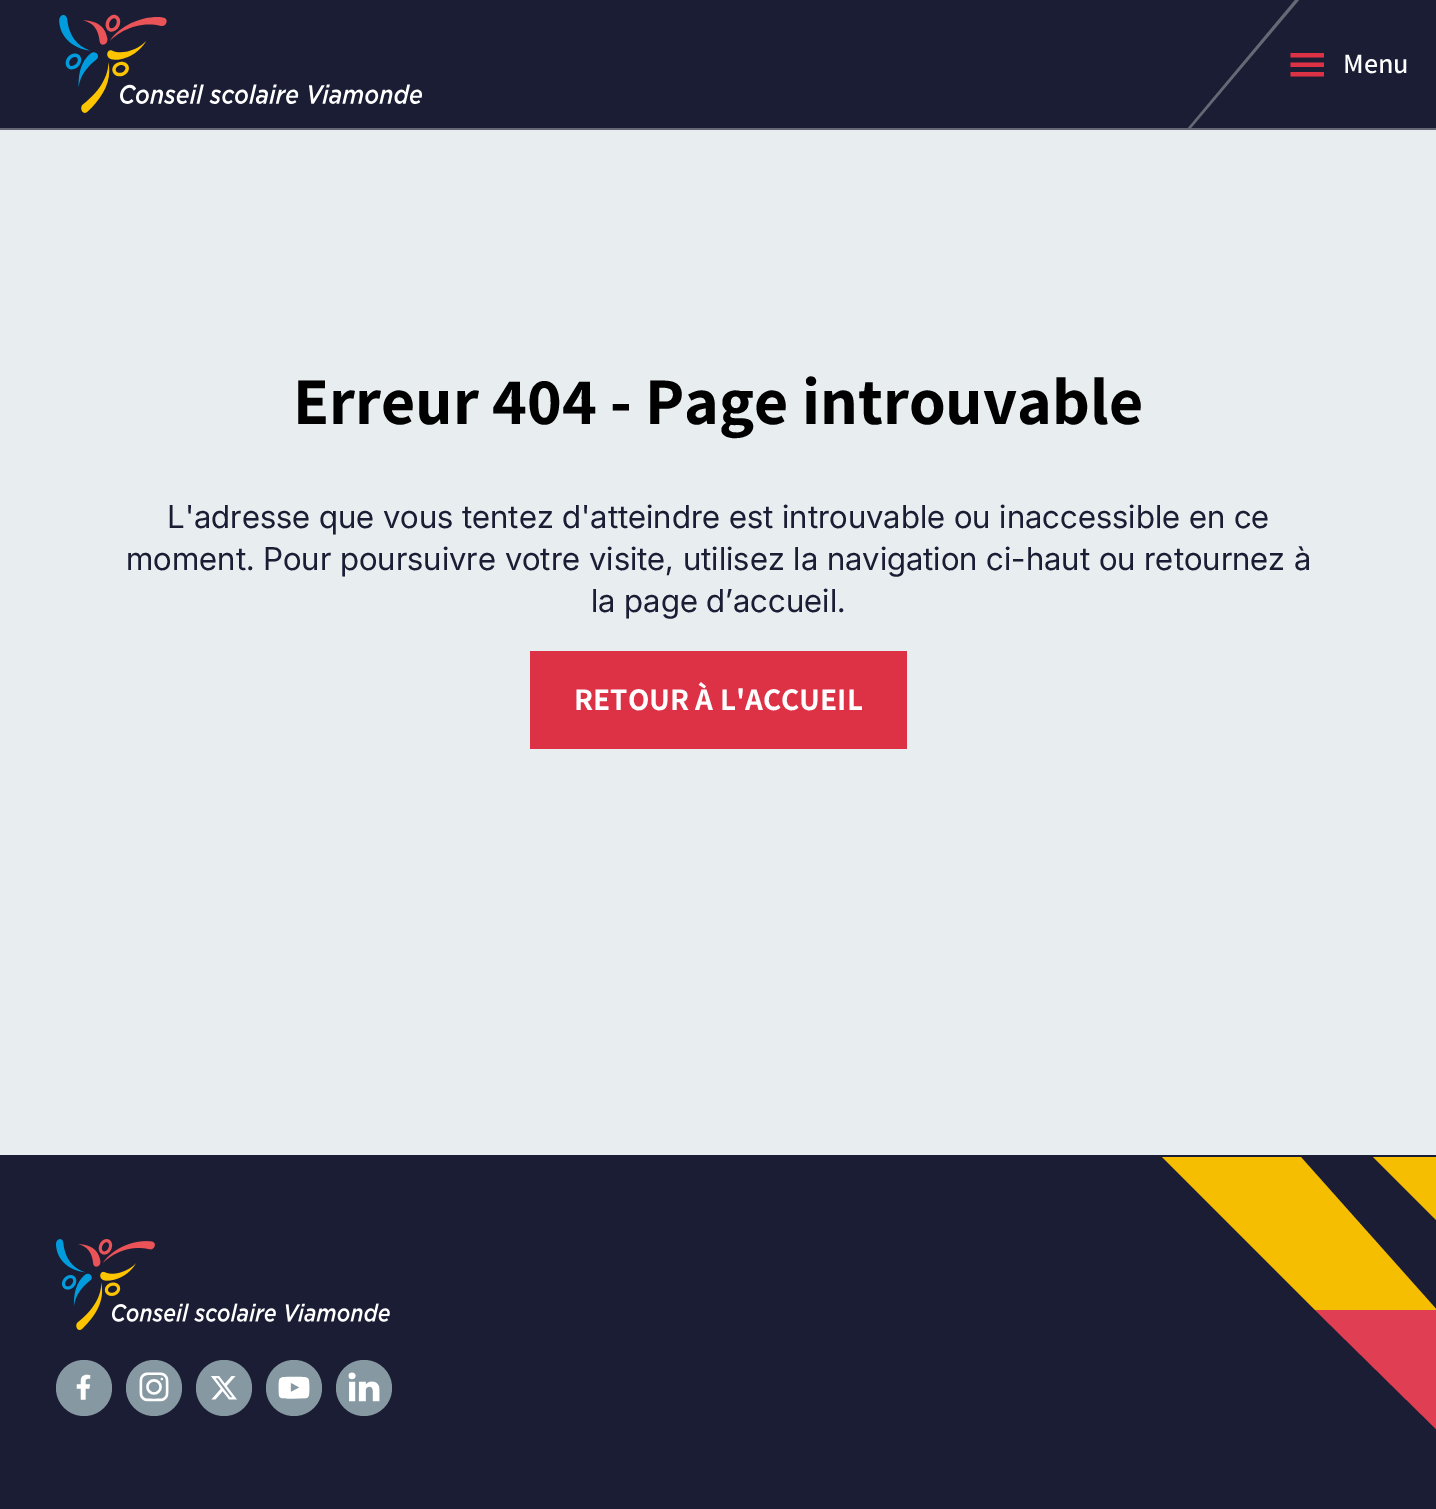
%!PS
<< /PageSize [1436 1509] >> setpagedevice
/rgb { dup -16 bitshift 255 div exch dup -8 bitshift 255 and 255 div exch 255 and 255 div setrgbcolor } def
/font { [ exch dup neg 0 0 3 -1 roll 0 0 ] selectfont } def
/text { moveto show } def
/circle { newpath 0 360 arc closepath } def
/picture { 5 dict begin { /h /w /y /x /name } { exch def } forall
  gsave x y translate w h scale
  w h 8 [w 0 0 h 0 0] name (r) file false 3 colorimage grestore end } def
0 1509 translate 1 -1 scale
4 setmiterlimit
/s1 { /Assistant-SemiBold 28 font 16#FEFEFE rgb } def
/s2 { /Assistant-Bold 66.5 font 16#000000 rgb } def
/s3 { /Inter-Regular 31.5 font 16#1A1D33 rgb } def
/s4 { /Assistant-Bold 31.5 font 16#FEFEFE rgb } def
16#E8EDF0 rgb
0 0 1436 1509 rectfill
16#1A1D33 rgb
0 0 1436 128 rectfill
16#666876 rgb
0 128 1436 2 rectfill
(pic1.raw) 59 14 363 99 picture
1295 0 moveto 1299 0 lineto 1191 128 lineto 1188 128 lineto closepath fill
16#DD3145 rgb
1290.5 76.5 moveto 1290.5 72 lineto 1324 72 lineto 1324 76.5 lineto closepath 1290.5 67 moveto 1290.5 62.5 lineto 1324 62.5 lineto 1324 67 lineto closepath 1290.5 57.5 moveto 1290.5 53 lineto 1324 53 lineto 1324 57.5 lineto closepath fill
s1
(Menu) 1343 73 text
s2
(Erreur 404 - Page introuvable) 293 424 text
s3
(L'adresse que vous tentez d'atteindre est introuvable ou inaccessible en ce) 167 528 text
(moment. Pour poursuivre votre visite, utilisez la navigation ci-haut ou retournez à) 126 570 text
(la page d’accueil.) 591 612 text
16#DD3145 rgb
530 651 377 98 rectfill
s4
(RETOUR À L'ACCUEIL) 574 710 text
16#1A1D33 rgb
0 1155 1436 354 rectfill
(pic2.raw) 56 1239 334 91 picture
16#8698A2 rgb
84 1388 28 circle fill
(pic3.raw) 76 1374 15 26 picture
154 1388 28 circle fill
(pic4.raw) 139 1372 30 30 picture
224 1388 28 circle fill
(pic5.raw) 211 1376 26 24 picture
294 1388 28 circle fill
(pic6.raw) 278 1376 32 23 picture
364 1388 28 circle fill
(pic7.raw) 348 1372 32 30 picture
gsave
1160 1157 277 275 rectclip
16#F6BE00 rgb
1371 1155 moveto 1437 1221 lineto 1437 1155 lineto closepath eofill
1160 1155 moveto 1315 1310 lineto 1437 1310 lineto 1299 1155 lineto closepath eofill
grestore
16#E03E52 rgb
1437 1430 moveto 1315 1310 lineto 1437 1310 lineto closepath eofill
showpage
